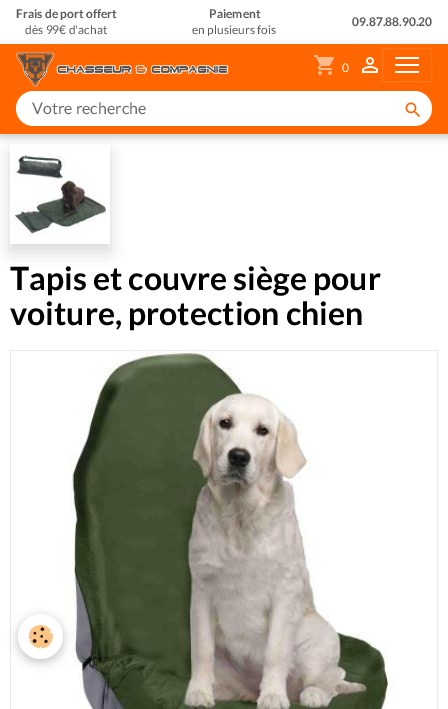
%!PS
<< /PageSize [448 709] /PageUsesTransparency true >> setpagedevice
/rgb { dup -16 bitshift 255 div exch dup -8 bitshift 255 and 255 div exch 255 and 255 div setrgbcolor } def
/font { [ exch dup neg 0 0 3 -1 roll 0 0 ] selectfont } def
/text { moveto show } def
/alpha { dup .setfillconstantalpha .setstrokeconstantalpha } def
/circle { newpath 0 360 arc closepath } def
/roundrect { 5 dict begin { /r /h /w /y /x } { exch def } forall
  x r add y moveto x w add y 2 copy h add r arct x w add y h add x 1 index r arct
  x y h add x y r arct x y 2 copy exch w add exch r arct closepath end } def
/shadow { 12 dict begin { /a /b /q /h /w /y /x } { exch def } forall gsave /was 0 def
  9 -2 -9 { dup b mul 4 div /e exch def 1 sub .425 mul 2.718 exch exp 1 add a .99 .min exch div /now exch def
    1 1 now sub 1 was sub div sub alpha /was now def
    w h .min e 2 mul add 0 gt { x e sub y e sub w e 2 mul add h e 2 mul add
      q e add b .6 mul add w h .min 2 div e add .min 0 .max roundrect fill } if } for grestore end } def
/picture { 5 dict begin { /h /w /y /x /name } { exch def } forall
  gsave x y translate w h scale
  w h 8 [w 0 0 h 0 0] name (r) file false 3 colorimage grestore end } def
0 .pushpdf14devicefilter
0 709 translate 1 -1 scale
4 setmiterlimit
/s1 { /Lato-Bold 12 font 16#5B5B5B rgb } def
/s2 { /Lato-Regular 12 font 16#5B5B5B rgb } def
/s3 { /Lato-Regular 12 font 16#F8F8F8 rgb } def
/s4 { /Lato-Regular 16 font 16#6B6B6B rgb } def
/s5 { /Lato-Bold 32 font 16#000000 rgb } def
16#FFFFFF rgb
0 0 448 709 rectfill
s1
(Frais de port offert) 16 18 text
s2
(dès 99€ d'achat) 25 34 text
s1
(Paiement) 209 18 text
s2
(en plusieurs fois) 192 34 text
s1
(09.87.88.90.20) 352 26 text
gsave
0 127 moveto 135 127 lineto 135 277 lineto 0 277 lineto closepath 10 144 moveto 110 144 lineto 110 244 lineto 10 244 lineto closepath eoclip newpath
16#000000 rgb
10 152 100 100 0 8 0.15 shadow
grestore
(pic5.raw) 14 148 92 88 picture
16#101010 rgb
0 47 448 90 0 4 0.23 shadow
16#FF6600 rgb
0 44 448 90 rectfill
(pic1.raw) 16 52 213 35 picture
(pic2.raw) 314 55 20 20 picture
s3
(0) 342 72 text
(pic3.raw) 362 57 16 16 picture
16#FF751A rgb
382.5 48.5 49 33 rectstroke
16#FFFFFF rgb
395 57 24 2 1 roundrect fill
395 64 24 2 1 roundrect fill
395 71 24 2 1 roundrect fill
16 91 416 35 17.5 roundrect fill
s4
(Votre recherche) 32 114 text
(pic4.raw) 405 102 15 15 picture
s5
(Tapis et couvre siège pour) 10 290 text
(voiture, protection chien) 10 325 text
16#E9E9E9 rgb
10.5 350.5 427 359 rectstroke
(pic6.raw) 11 351 426 358 picture
16#000000 rgb
18 617 45 45 22.5 5 0.24 shadow
16#FFFFFF rgb
40.5 636.5 22.5 circle fill
(pic7.raw) 28 624 25 25 picture
.poppdf14devicefilter showpage
